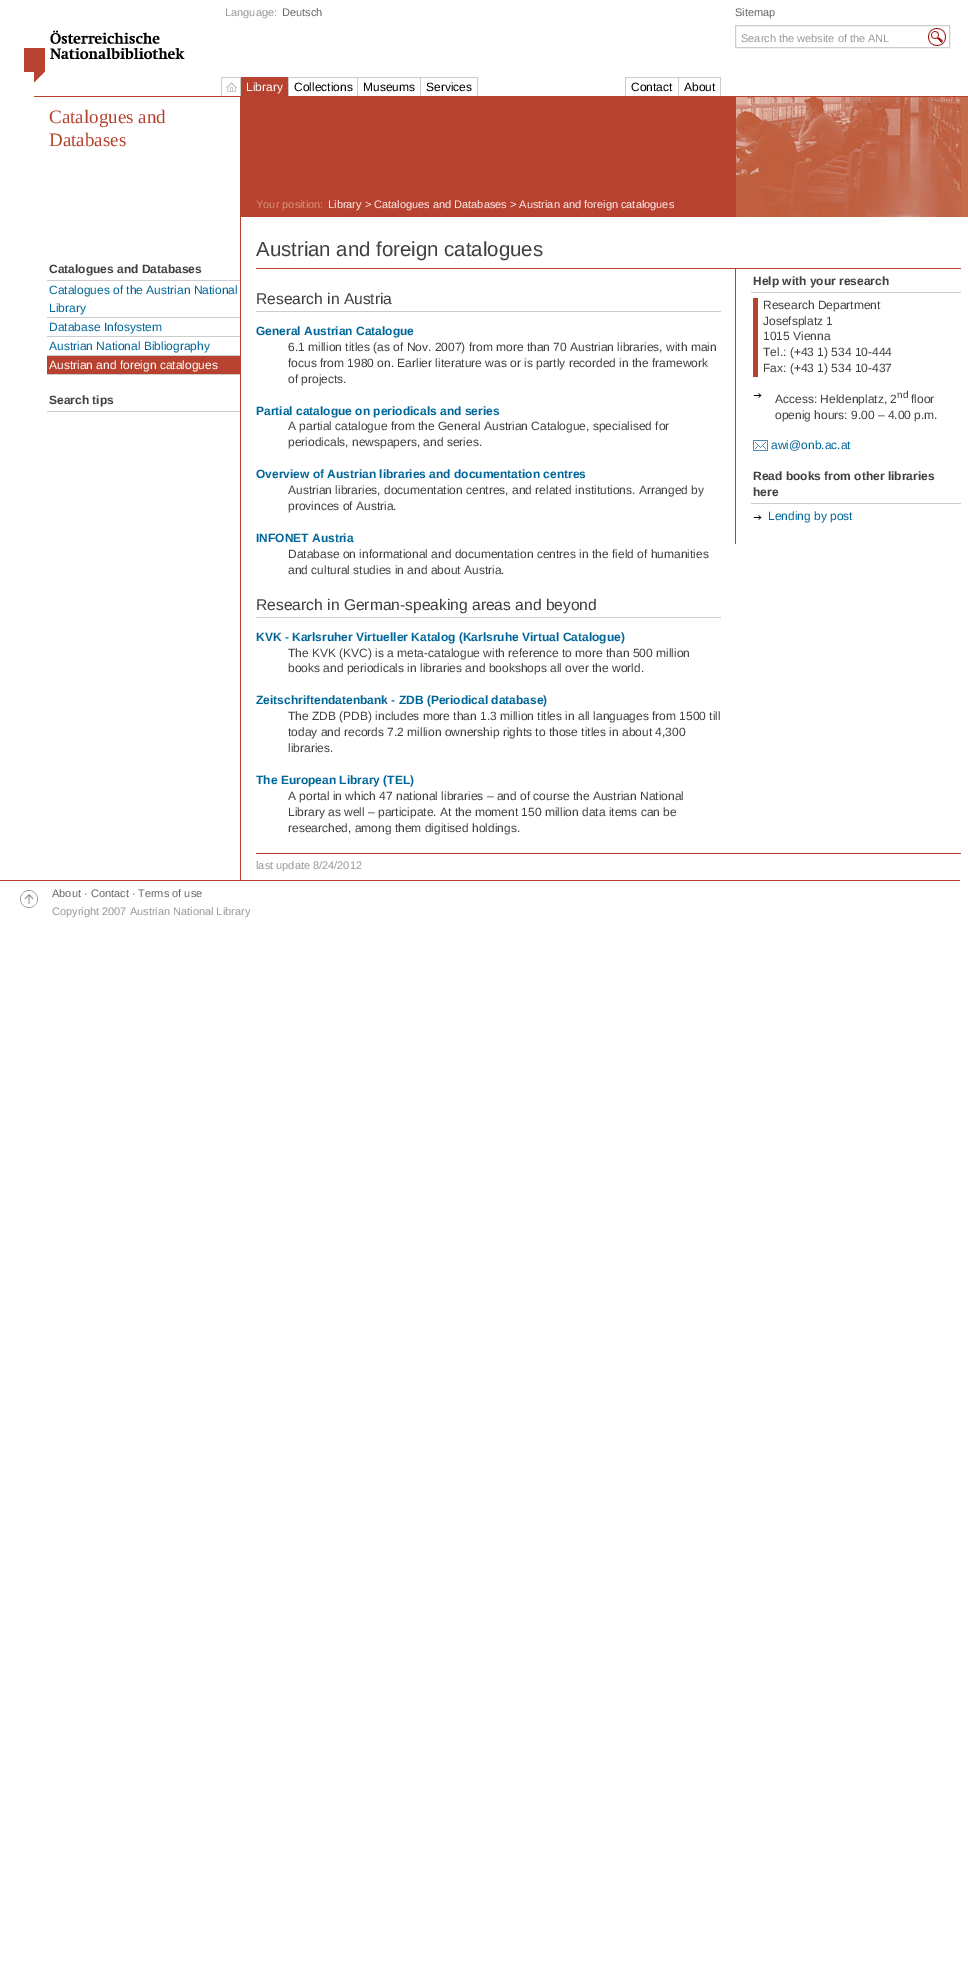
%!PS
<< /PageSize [968 1981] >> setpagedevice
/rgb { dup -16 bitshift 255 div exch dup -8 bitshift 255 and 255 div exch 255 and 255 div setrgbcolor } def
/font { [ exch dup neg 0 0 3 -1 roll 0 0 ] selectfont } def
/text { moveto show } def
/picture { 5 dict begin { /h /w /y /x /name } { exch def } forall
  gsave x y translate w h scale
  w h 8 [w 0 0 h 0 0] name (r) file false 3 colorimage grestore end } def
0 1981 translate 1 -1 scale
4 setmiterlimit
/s1 { /LiberationSans-Regular 11 font 16#999999 rgb } def
/s2 { /LiberationSans-Regular 11 font 16#666666 rgb } def
/s3 { /LiberationSans-Regular 12 font 16#FFFFFF rgb } def
/s4 { /LiberationSans-Regular 12 font 16#000000 rgb } def
/s5 { /LiberationSerif-Regular 19 font 16#B7422F rgb } def
/s6 { /LiberationSans-Bold 12 font 16#404040 rgb } def
/s7 { /LiberationSans-Regular 12 font 16#006699 rgb } def
/s8 { /LiberationSans-Regular 11 font 16#D59675 rgb } def
/s9 { /LiberationSans-Regular 11 font 16#FFEEEE rgb } def
/s10 { /LiberationSans-Regular 20.4 font 16#404040 rgb } def
/s11 { /LiberationSans-Regular 15.6 font 16#404040 rgb } def
/s12 { /LiberationSans-Bold 12 font 16#006699 rgb } def
/s13 { /LiberationSans-Regular 12 font 16#404040 rgb } def
/s14 { /LiberationSans-Regular 10 font 16#404040 rgb } def
/s15 { /LiberationSans-Regular 11 font 16#404040 rgb } def
16#FFFFFF rgb
0 0 968 1981 rectfill
s1
(Language:) 225 16 text
s2
(Deutsch) 282 16 text
(Sitemap) 735 16 text
16#CCCCCC rgb
735.5 25.5 214 22 rectstroke
s1
(Search the website of the ANL) 741 42 text
(pic1.raw) 928 28 18 18 picture
(pic2.raw) 24 30 161 52 picture
16#CCCCCC rgb
221 77 20 1 rectfill
240 77 1 19 rectfill
221 77 1 19 rectfill
(pic3.raw) 226 82 11 10 picture
16#B7422F rgb
241 77 48 1 rectfill
16#CCCCCC rgb
288 77 1 19 rectfill
16#B7422F rgb
241 78 47 18 rectfill
s3
(Library) 246 91 text
16#CCCCCC rgb
289 77 189 1 rectfill
357 77 1 19 rectfill
s4
(Collections) 294 91 text
16#CCCCCC rgb
420 77 1 19 rectfill
s4
(Museums) 363 91 text
16#CCCCCC rgb
477 77 1 19 rectfill
s4
(Services) 426 91 text
16#CCCCCC rgb
625 77 96 1 rectfill
678 77 1 19 rectfill
625 77 1 19 rectfill
s4
(Contact) 631 91 text
16#CCCCCC rgb
720 77 1 19 rectfill
s4
(About) 684 91 text
(pic4.raw) 34 96 934 121 picture
16#B7422F rgb
240 97 1 783 rectfill
s5
(Catalogues and) 49 123 text
(Databases) 49 146 text
16#CCCCCC rgb
47 280 193 1 rectfill
s6
(Catalogues and Databases) 49 273 text
16#CCCCCC rgb
47 317 193 1 rectfill
s7
(Catalogues of the Austrian National) 49 294 text
(Library) 49 312 text
16#CCCCCC rgb
47 336 193 1 rectfill
s7
(Database Infosystem) 49 331 text
16#CCCCCC rgb
47 355 193 1 rectfill
s7
(Austrian National Bibliography) 49 350 text
16#B7422F rgb
47 356 193 18 rectfill
16#CCCCCC rgb
47 374 193 1 rectfill
s3
(Austrian and foreign catalogues) 49 369 text
16#CCCCCC rgb
47 411 193 1 rectfill
s6
(Search tips) 49 404 text
16#B7422F rgb
241 97 720 120 rectfill
(pic5.raw) 736 97 225 120 picture
s8
(Your position:) 256 208 text
s9
(Library > Catalogues and Databases > Austrian and foreign catalogues) 328 208 text
16#B7422F rgb
256 268 705 1 rectfill
s10
(Austrian and foreign catalogues) 256 256 text
16#CCCCCC rgb
256 311 465 1 rectfill
s11
(Research in Austria) 256 304 text
s12
(General Austrian Catalogue) 256 335 text
s13
(6.1 million titles \(as of Nov. 2007\) from more than 70 Austrian libraries, with main) 288 351 text
(focus from 1980 on. Earlier literature was or is partly recorded in the framework) 288 367 text
(of projects.) 288 383 text
s12
(Partial catalogue on periodicals and series) 256 415 text
s13
(A partial catalogue from the General Austrian Catalogue, specialised for) 288 430 text
(periodicals, newspapers, and series.) 288 446 text
s12
(Overview of Austrian libraries and documentation centres) 256 478 text
s13
(Austrian libraries, documentation centres, and related institutions. Arranged by) 288 494 text
(provinces of Austria.) 288 510 text
s12
(INFONET Austria) 256 542 text
s13
(Database on informational and documentation centres in the field of humanities) 288 558 text
(and cultural studies in and about Austria.) 288 574 text
16#CCCCCC rgb
256 617 465 1 rectfill
s11
(Research in German-speaking areas and beyond) 256 610 text
s12
(KVK - Karlsruher Virtueller Katalog \(Karlsruhe Virtual Catalogue\)) 256 641 text
s13
(The KVK \(KVC\) is a meta-catalogue with reference to more than 500 million) 288 657 text
(books and periodicals in libraries and bookshops all over the world.) 288 672 text
s12
(Zeitschriftendatenbank - ZDB \(Periodical database\)) 256 704 text
s13
(The ZDB \(PDB\) includes more than 1.3 million titles in all languages from 1500 till) 288 720 text
(today and records 7.2 million ownership rights to those titles in about 4,300) 288 736 text
(libraries.) 288 752 text
s12
(The European Library \(TEL\)) 256 784 text
s13
(A portal in which 47 national libraries – and of course the Austrian National) 288 800 text
(Library as well – participate. At the moment 150 million data items can be) 288 816 text
(researched, among them digitised holdings.) 288 832 text
16#B7422F rgb
735 269 1 275 rectfill
16#CCCCCC rgb
751 292 210 1 rectfill
s6
(Help with your research) 753 285 text
16#B7422F rgb
753 298 5 79 rectfill
s13
(Research Department) 763 309 text
(Josefsplatz 1) 763 325 text
(1015 Vienna) 763 340 text
(Tel.: \(+43 1\) 534 10-444) 763 356 text
(Fax: \(+43 1\) 534 10-437) 763 372 text
(pic6.raw) 753 393 9 5 picture
(Access: Heldenplatz, 2) 775 403 text
s14
(nd) 897 398 text
s13
(floor) 911 403 text
(openig hours: 9.00 – 4.00 p.m.) 775 419 text
(pic7.raw) 753 440 15 11 picture
s7
(awi@onb.ac.at) 771 449 text
16#CCCCCC rgb
751 503 210 1 rectfill
s6
(Read books from other libraries) 753 480 text
(here) 753 496 text
(pic6.raw) 753 515 9 5 picture
s7
(Lending by post) 768 520 text
16#B7422F rgb
256 853 705 1 rectfill
s1
(last update 8/24/2012) 256 869 text
16#B7422F rgb
0 880 960 1 rectfill
(pic8.raw) 20 890 18 18 picture
s2
(About) 52 897 text
s15
(·) 84 897 text
s2
(Contact) 91 897 text
s15
(·) 132 897 text
s2
(Terms of use) 138 897 text
s1
(Copyright 2007 Austrian National Library) 52 915 text
showpage
